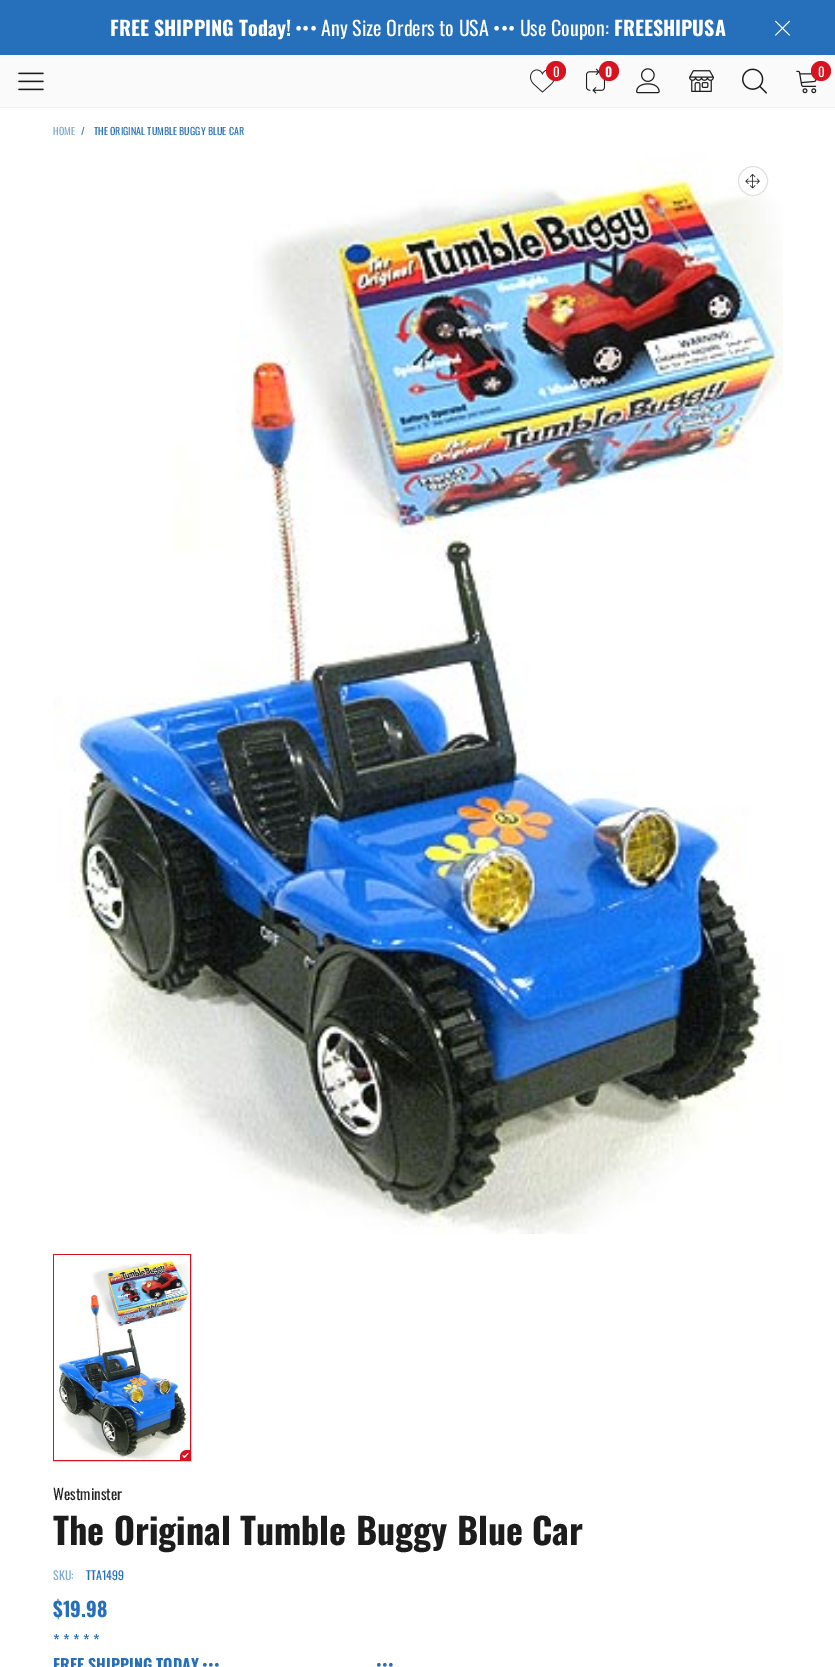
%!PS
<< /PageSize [835 1667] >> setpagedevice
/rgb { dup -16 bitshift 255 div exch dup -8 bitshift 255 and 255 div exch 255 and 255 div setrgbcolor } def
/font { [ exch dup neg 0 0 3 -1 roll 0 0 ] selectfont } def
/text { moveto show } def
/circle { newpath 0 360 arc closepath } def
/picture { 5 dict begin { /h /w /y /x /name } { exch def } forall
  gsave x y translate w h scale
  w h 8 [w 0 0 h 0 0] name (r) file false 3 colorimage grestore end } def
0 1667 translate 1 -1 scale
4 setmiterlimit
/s1 { /Oswald-Bold 20 font 16#FFFFFF rgb } def
/s2 { /Oswald-Regular 20 font 16#FFFFFF rgb } def
/s3 { /Oswald-Regular 13 font 16#FFFFFF rgb } def
/s4 { /Oswald-Bold 13 font 16#FFFFFF rgb } def
/s5 { /Oswald-Regular 10 font 16#7DA9D6 rgb } def
/s6 { /Oswald-Regular 10 font 16#266FBA rgb } def
/s7 { /Oswald-Regular 15 font 16#222222 rgb } def
/s8 { /Oswald-Regular 12 font 16#7DA9D6 rgb } def
/s9 { /Oswald-Regular 12 font 16#266FBA rgb } def
/s10 { /Oswald-Bold 20 font 16#266FBA rgb } def
/s11 { /Oswald-Regular 16 font 16#266FBA rgb } def
/s12 { /Oswald-Bold 16 font 16#266FBA rgb } def
16#FFFFFF rgb
0 0 835 1667 rectfill
16#266FBA rgb
0 0 835 55 rectfill
s1
(FREE SHIPPING Today!) 110 36 text
s2
(••• Any Size Orders to USA ••• Use Coupon:) 295 36 text
s1
(FREESHIPUSA) 614 36 text
(pic1.raw) 775 20 15 16 picture
16#FAFAFA rgb
0 55 835 52 rectfill
16#EFF3F7 rgb
0 107 835 1 rectfill
(pic2.raw) 18 72 26 19 picture
(pic3.raw) 530 69 25 24 picture
16#D9121F rgb
556 71 10 circle fill
s3
(0) 553 77 text
(pic4.raw) 585 68 21 26 picture
16#D9121F rgb
609 71 10 circle fill
s4
(0) 605 77 text
(pic5.raw) 636 68 24 26 picture
(pic6.raw) 689 70 25 22 picture
(pic7.raw) 742 68 25 26 picture
(pic8.raw) 796 70 21 24 picture
16#D9121F rgb
821 71 10 circle fill
s3
(0) 818 77 text
s5
(HOME) 53 135 text
s6
(/) 81 135 text
(THE ORIGINAL TUMBLE BUGGY BLUE CAR) 94 135 text
(pic9.raw) 53 151 730 1083 picture
16#FFFFFF rgb
753 181 14.5 circle gsave fill grestore
16#E1E1E1 rgb
stroke
(pic10.raw) 745 174 15 15 picture
16#D9121F rgb
53.5 1254.5 137 206 rectstroke
(pic11.raw) 54 1255 136 205 picture
187 1450 moveto 190 1450 lineto 190 1460 lineto 180 1460 lineto 180 1457 lineto 180 1453 183 1450 187 1450 curveto closepath fill
16#FFFFFF rgb
183.5 1457 moveto 188 1453 lineto 188.5 1453.5 lineto 184.5 1458 lineto closepath fill
182.5 1456 moveto 183 1455 lineto 185 1457 lineto 184.5 1458 lineto closepath fill
s7
(Westminster) 53 1500 text
/Oswald-Bold 36 font
16#1C1C1C rgb
53 1545 moveto 0.25 0 32 (The Original Tumble Buggy Blue Car) widthshow
s8
(SKU:) 53 1580 text
s9
(TTA1499) 86 1580 text
s10
($19.98) 53 1617 text
s11
(* * * * *) 53 1647 text
s12
(FREE SHIPPING TODAY) 53 1671 text
s11
(•••) 202 1671 text
(•••) 376 1671 text
showpage
